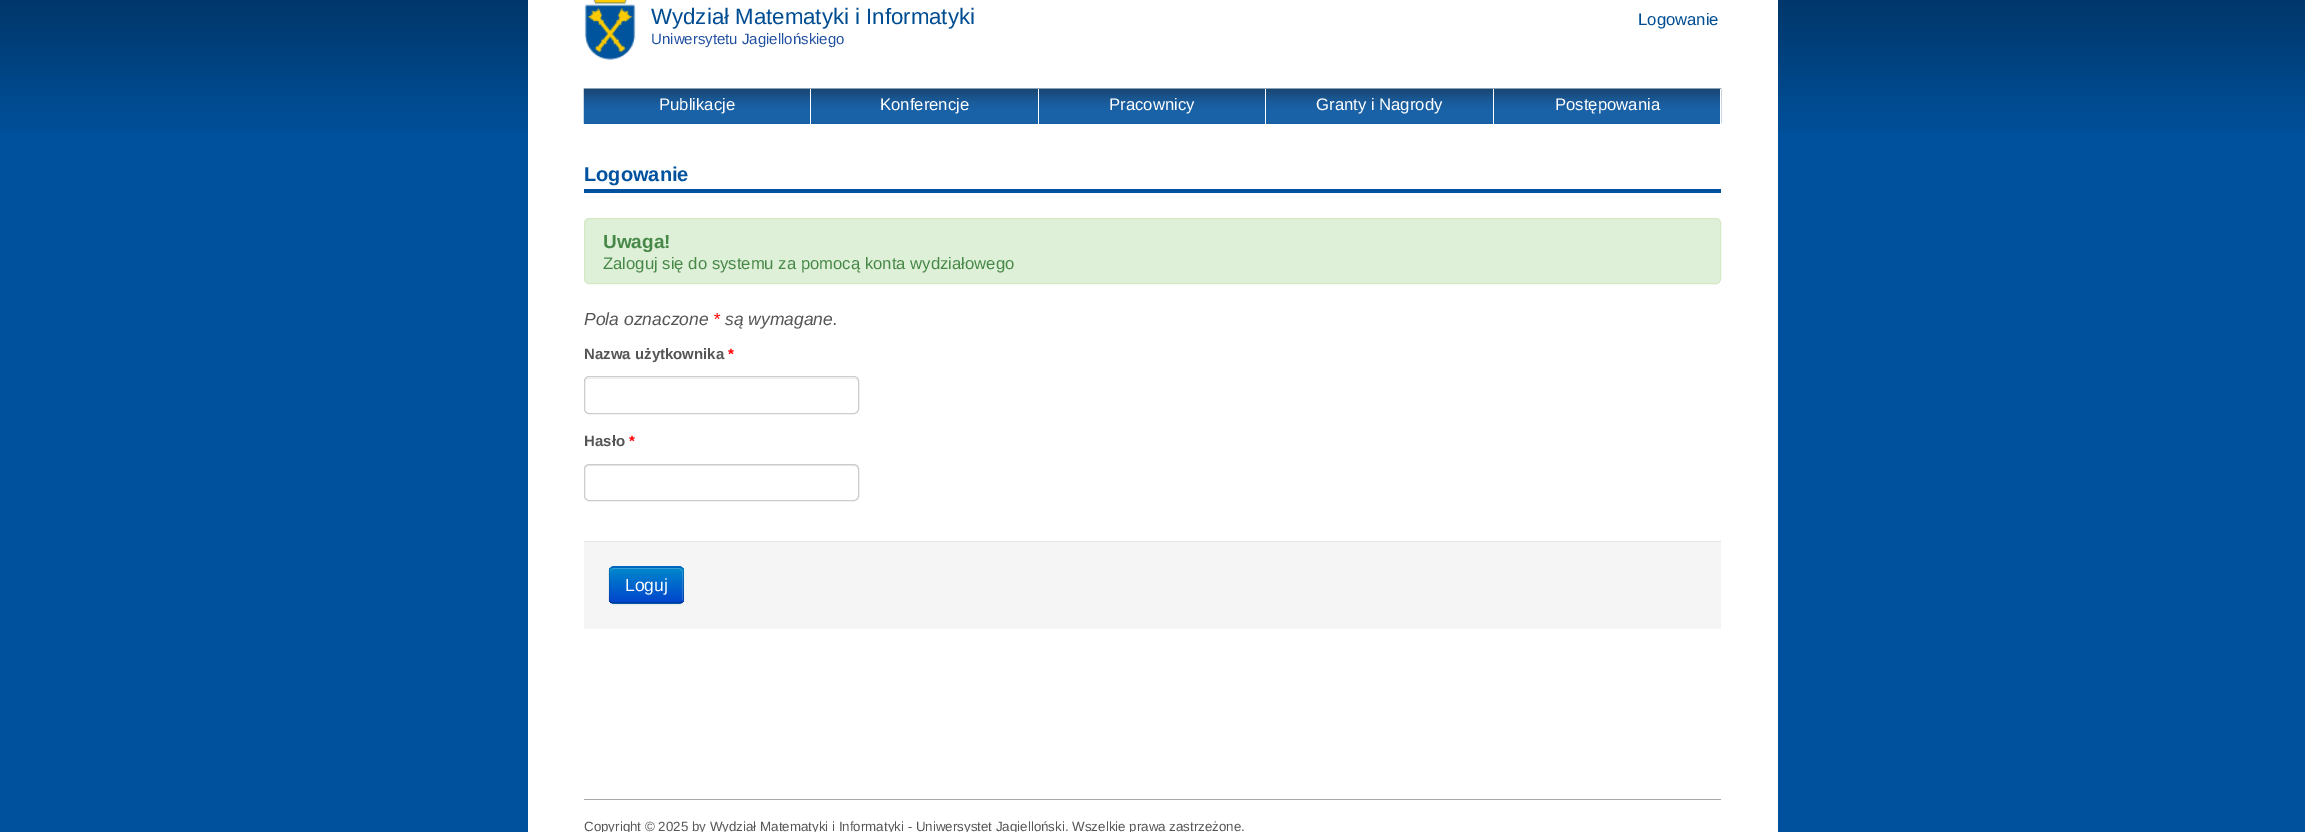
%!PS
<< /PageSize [2305 832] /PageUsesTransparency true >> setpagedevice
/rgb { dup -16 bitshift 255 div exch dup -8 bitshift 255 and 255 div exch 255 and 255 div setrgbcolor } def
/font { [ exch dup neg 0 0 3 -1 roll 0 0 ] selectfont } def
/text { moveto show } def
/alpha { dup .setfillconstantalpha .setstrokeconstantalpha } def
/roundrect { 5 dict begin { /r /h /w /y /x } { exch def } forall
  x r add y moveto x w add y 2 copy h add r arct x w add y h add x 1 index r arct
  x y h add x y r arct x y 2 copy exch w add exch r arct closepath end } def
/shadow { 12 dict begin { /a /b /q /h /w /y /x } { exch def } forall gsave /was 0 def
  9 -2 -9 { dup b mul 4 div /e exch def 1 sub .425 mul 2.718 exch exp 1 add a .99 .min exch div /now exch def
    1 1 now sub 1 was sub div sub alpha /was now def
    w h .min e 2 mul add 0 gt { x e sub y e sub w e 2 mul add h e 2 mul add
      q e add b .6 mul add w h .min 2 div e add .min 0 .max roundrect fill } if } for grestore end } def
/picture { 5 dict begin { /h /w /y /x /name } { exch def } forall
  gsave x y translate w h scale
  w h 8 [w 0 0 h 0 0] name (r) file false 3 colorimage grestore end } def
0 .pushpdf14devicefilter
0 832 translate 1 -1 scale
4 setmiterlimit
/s1 { /LiberationSans-Regular 22.25 font 16#004C92 rgb } def
/s2 { /LiberationSans-Regular 16.7 font 16#004C92 rgb } def
/s3 { /LiberationSans-Regular 15 font 16#2251A1 rgb } def
/s4 { /LiberationSans-Regular 16.7 font 16#FFFFFF rgb } def
/s5 { /LiberationSans-Bold 20 font 16#00519E rgb } def
/s6 { /LiberationSans-Bold 19 font 16#468847 rgb } def
/s7 { /LiberationSans-Regular 16.7 font 16#468847 rgb } def
/s8 { /LiberationSans-Italic 17.5 font 16#555555 rgb } def
/s9 { /LiberationSans-Italic 17.5 font 16#FF0000 rgb } def
/s10 { /LiberationSans-Bold 15 font 16#555555 rgb } def
/s11 { /LiberationSans-Bold 15 font 16#FF0000 rgb } def
/s12 { /LiberationSans-Regular 17.5 font 16#FFFFFF rgb } def
/s13 { /LiberationSans-Regular 13.35 font 16#555555 rgb } def
16#00519D rgb
0 0 2305 832 rectfill
(pic1.raw) 0 0 2305 132 picture
16#FFFFFF rgb
528 0 1250 832 rectfill
(pic2.raw) 584 0 52 60 picture
s1
(Wydział Matematyki i Informatyki) 651 24 text
s2
(Logowanie) 1638 25 text
s3
(Uniwersytetu Jagiellońskiego) 651 44 text
16#00519D rgb
584 123 1136 1 rectfill
(pic3.raw) 583 88 1139 36 picture
16#FFFFFF rgb
810 89 1 35 rectfill
s4
(Publikacje) 659 110 text
1038 89 1 35 rectfill
(Konferencje) 880 110 text
1265 89 1 35 rectfill
(Pracownicy) 1109 110 text
1493 89 1 35 rectfill
(Granty i Nagrody) 1316 110 text
1720 89 1 35 rectfill
(Postępowania) 1555 110 text
16#00519E rgb
584 189 1137 4 rectfill
s5
(Logowanie) 584 181 text
16#DFF0D8 rgb
584.5 218.5 1136 65 4.5 roundrect gsave fill grestore
16#D6E9C6 rgb
stroke
s6
(Uwaga!) 603 248 text
s7
(Zaloguj się do systemu za pomocą konta wydziałowego) 603 269 text
s8
(Pola oznaczone) 584 325 text
s9
(*) 713 325 text
s8
(są wymagane.) 725 325 text
s10
(Nazwa użytkownika) 584 359 text
s11
(*) 728 359 text
16#ECECEC rgb
589 379 moveto 855 379 lineto 858 381 lineto 858 382 lineto 858 380 856 378 854 378 curveto 589 378 lineto 587 378 585 380 585 382 curveto 585 380 587 379 589 379 curveto closepath fill
16#CCCCCC rgb
584.5 376.5 274 37 4.5 roundrect stroke
s10
(Hasło) 584 446 text
s11
(*) 629 446 text
16#ECECEC rgb
589 466 moveto 854 466 lineto 856 466 858 468 858 470 curveto 858 467 857 465 854 465 curveto 589 465 lineto 586 465 585 467 585 470 curveto 585 468 587 466 589 466 curveto closepath fill
16#CCCCCC rgb
584.5 464.5 274 36 4.5 roundrect stroke
16#F5F5F5 rgb
584 542 1137 87 rectfill
16#E5E5E5 rgb
584 541 1137 1 rectfill
16#000000 rgb
609 568 75 37 5 1 0.05 shadow
16#006DCC rgb
609 566 75 38 5 roundrect fill
gsave
609 566 75 38 5 roundrect clip newpath
gsave 609 568 moveto 684 568 lineto 684 603 lineto 609 603 lineto closepath clip newpath
<< /ShadingType 2 /ColorSpace /DeviceRGB /Coords [646 568 646 603] /Extend [true true] /Function << /FunctionType 2 /Domain [0 1] /C0 [0 0.533 0.8] /C1 [0 0.267 0.8] /N 1 >> >> shfill grestore
grestore
0.2 alpha
16#FFFFFF rgb
614 569 moveto 679 569 lineto 683 569 682 574 682 577 curveto 682 602 lineto 682 601 683 600 683 599 curveto 683 572 lineto 683 570 681 568 679 568 curveto 614 568 lineto 612 568 610 570 610 572 curveto 610 570 612 569 614 569 curveto closepath fill
0.25 alpha
16#000000 rgb
1.2 setlinewidth
682 602 moveto 679 603 lineto 613.5 603 lineto 610.5 602 lineto stroke
0.1 alpha
610.5 602 moveto 608.5 600 609.5 596.5 609.5 594 curveto 609.5 585 lineto 609.5 566 606 567 624.5 567 curveto 668 567 lineto 686.5 567 683 566 683 585 curveto 683 594 lineto 683 596.5 684 600 682 602 curveto stroke
1 alpha
s12
(Loguj) 625 591 text
16#A8A8A8 rgb
584 799 1137 1 rectfill
s13
(Copyright © 2025 by Wydział Matematyki i Informatyki - Uniwersystet Jagielloński. Wszelkie prawa zastrzeżone.) 584 831 text
.poppdf14devicefilter showpage
